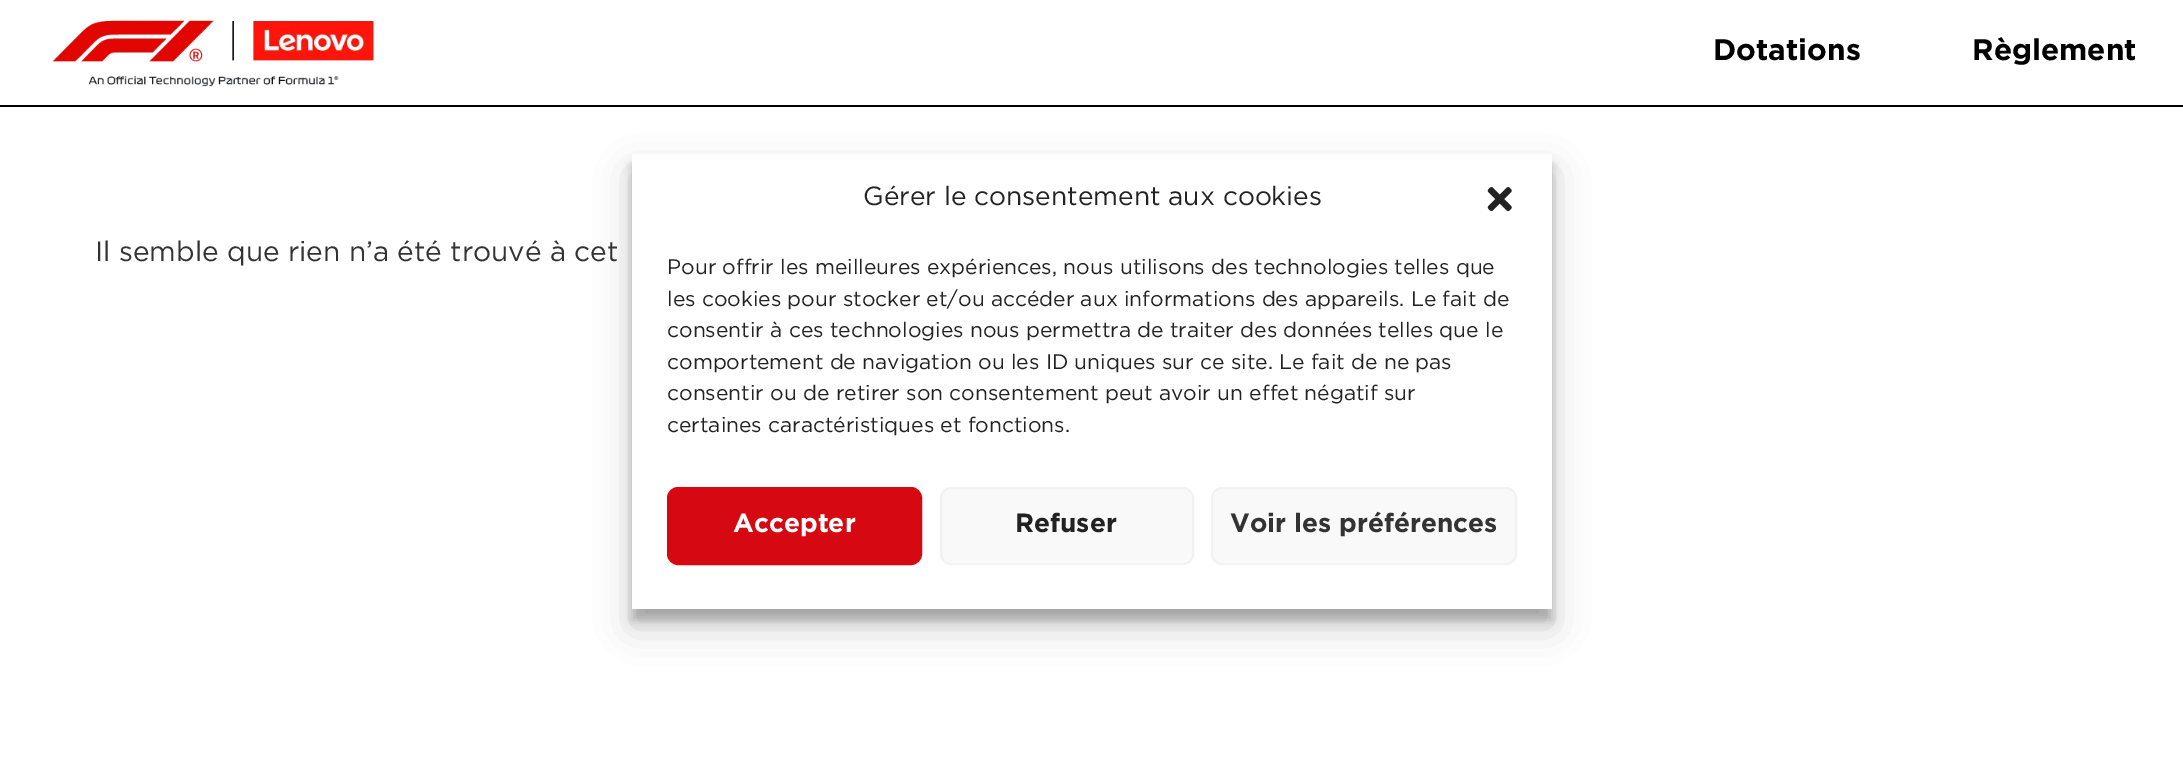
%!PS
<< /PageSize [2183 761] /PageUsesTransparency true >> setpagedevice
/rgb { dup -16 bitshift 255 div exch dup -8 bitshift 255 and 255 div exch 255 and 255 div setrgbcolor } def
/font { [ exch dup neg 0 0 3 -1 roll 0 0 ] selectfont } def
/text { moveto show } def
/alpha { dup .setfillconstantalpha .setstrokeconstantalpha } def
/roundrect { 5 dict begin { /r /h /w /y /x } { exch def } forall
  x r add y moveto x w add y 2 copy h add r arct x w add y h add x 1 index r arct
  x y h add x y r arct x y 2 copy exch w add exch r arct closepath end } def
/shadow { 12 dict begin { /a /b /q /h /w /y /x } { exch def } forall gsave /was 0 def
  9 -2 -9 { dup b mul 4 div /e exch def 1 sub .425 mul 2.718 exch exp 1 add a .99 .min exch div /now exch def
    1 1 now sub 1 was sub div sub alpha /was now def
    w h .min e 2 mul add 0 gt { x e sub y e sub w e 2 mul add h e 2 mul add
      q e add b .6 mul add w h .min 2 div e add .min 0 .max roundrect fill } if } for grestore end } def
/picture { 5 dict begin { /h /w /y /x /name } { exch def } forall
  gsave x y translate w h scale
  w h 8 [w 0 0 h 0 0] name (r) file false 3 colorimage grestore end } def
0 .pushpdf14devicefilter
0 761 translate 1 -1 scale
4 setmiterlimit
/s1 { /Gotham-Bold 29.75 font 16#000000 rgb } def
/s2 { /Gotham-Regular 28 font 16#333333 rgb } def
/s3 { /Gotham-Regular 26.25 font 16#222222 rgb } def
/s4 { /Gotham-Regular 21 font 16#222222 rgb } def
/s5 { /Gotham-Bold 26.25 font 16#FFFFFF rgb } def
/s6 { /Gotham-Bold 26.25 font 16#222222 rgb } def
/s7 { /Gotham-Bold 26.25 font 16#333333 rgb } def
16#FFFFFF rgb
0 0 2183 761 rectfill
16#000000 rgb
0 105 2183 2 rectfill
(pic1.raw) 52 20 322 67 picture
s1
(Dotations) 1713 60 text
(Règlement) 1972 60 text
s2
(Il semble que rien n’a été trouvé à cet) 95 261 text
16#000000 rgb
632 165 920 455 0 5 0.23 shadow
632 172 920 455 0 17.5 0.19 shadow
16#FFFFFF rgb
632 154 920 455 rectfill
s3
(Gérer le consentement aux cookies) 863 205 text
(pic2.raw) 1487 187 25 25 picture
s4
(Pour offrir les meilleures expériences, nous utilisons des technologies telles que) 667 274 text
(les cookies pour stocker et/ou accéder aux informations des appareils. Le fait de) 667 306 text
(consentir à ces technologies nous permettra de traiter des données telles que le) 667 337 text
(comportement de navigation ou les ID uniques sur ce site. Le fait de ne pas) 667 369 text
(consentir ou de retirer son consentement peut avoir un effet négatif sur) 667 400 text
(certaines caractéristiques et fonctions.) 667 432 text
16#D60812 rgb
668 488 253 76 10 roundrect gsave fill grestore
2 setlinewidth
stroke
s5
(Accepter) 733 532 text
16#F9F9F9 rgb
941 488 252 76 10 roundrect gsave fill grestore
16#F2F2F2 rgb
stroke
s6
(Refuser) 1015 532 text
16#F9F9F9 rgb
1212 488 304 76 10 roundrect gsave fill grestore
16#F2F2F2 rgb
stroke
s7
(Voir les préférences) 1230 532 text
.poppdf14devicefilter showpage
